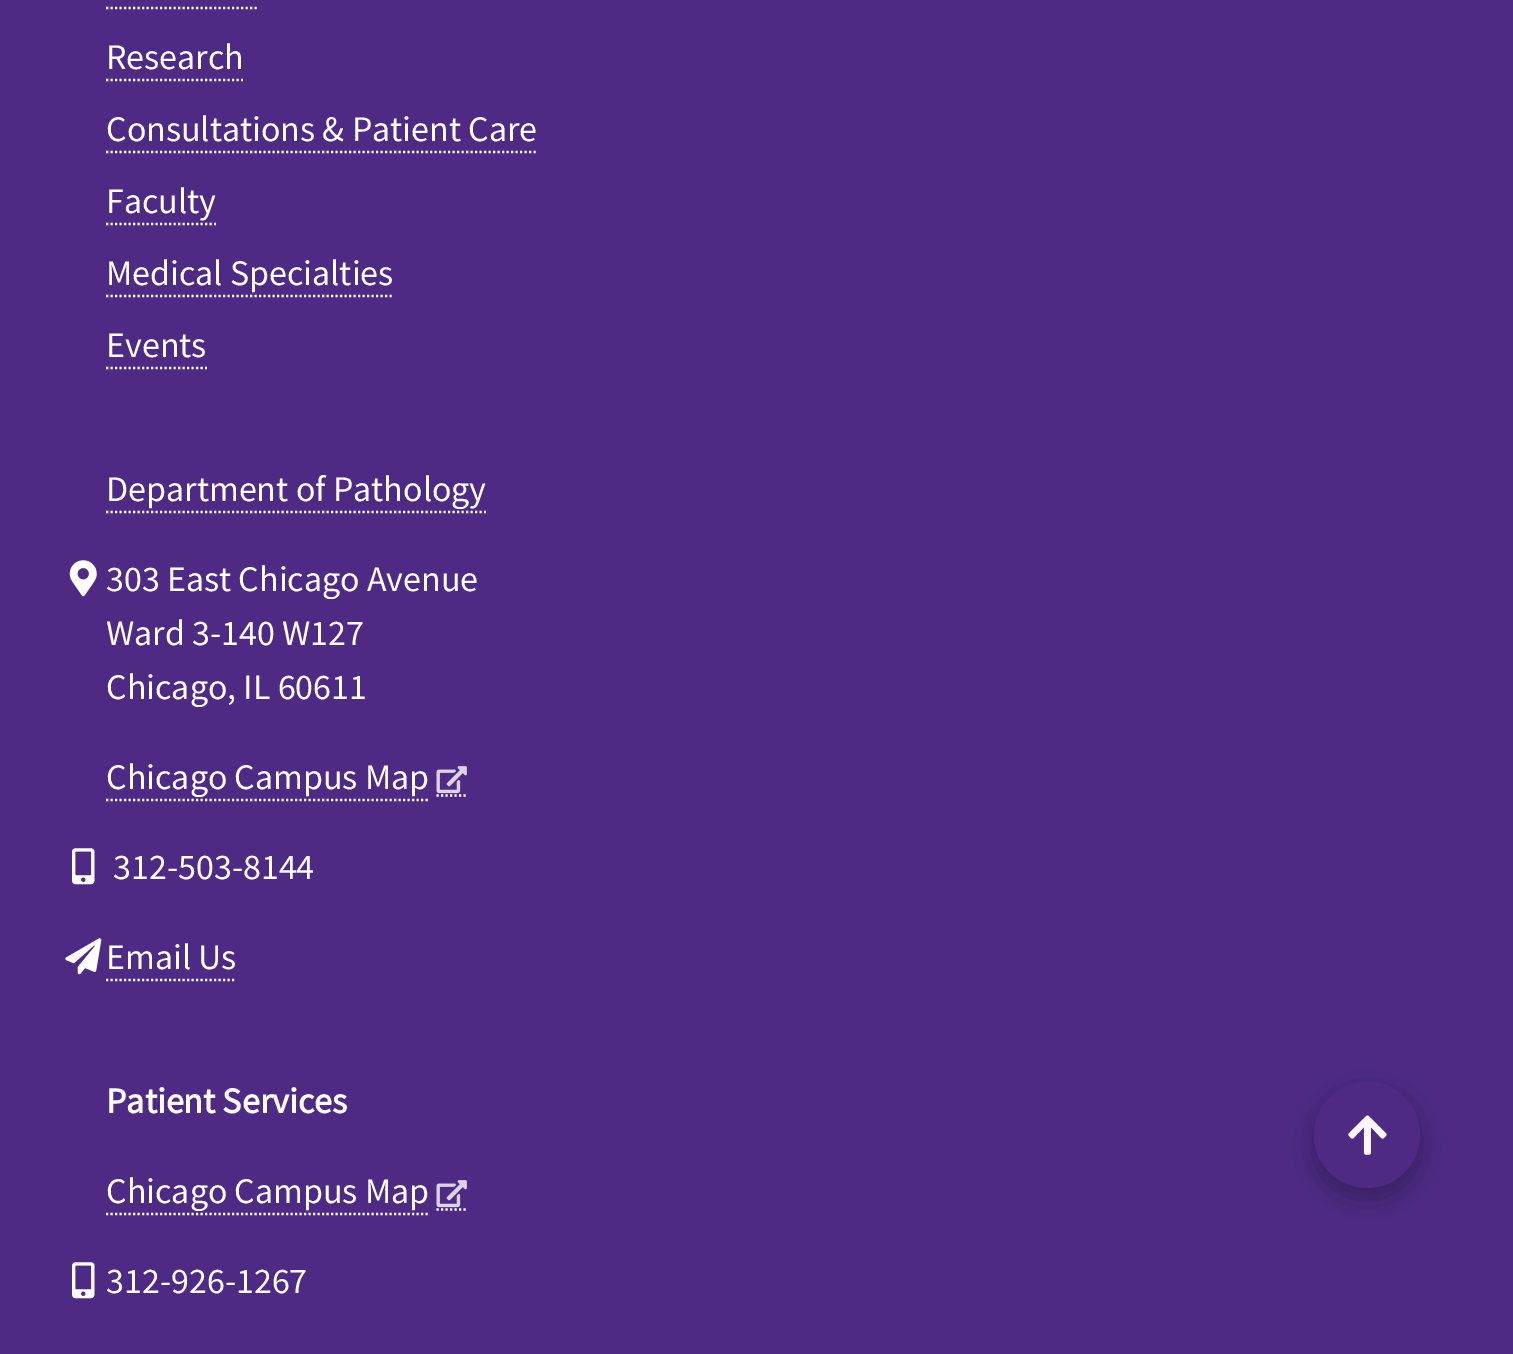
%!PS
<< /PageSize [1513 1354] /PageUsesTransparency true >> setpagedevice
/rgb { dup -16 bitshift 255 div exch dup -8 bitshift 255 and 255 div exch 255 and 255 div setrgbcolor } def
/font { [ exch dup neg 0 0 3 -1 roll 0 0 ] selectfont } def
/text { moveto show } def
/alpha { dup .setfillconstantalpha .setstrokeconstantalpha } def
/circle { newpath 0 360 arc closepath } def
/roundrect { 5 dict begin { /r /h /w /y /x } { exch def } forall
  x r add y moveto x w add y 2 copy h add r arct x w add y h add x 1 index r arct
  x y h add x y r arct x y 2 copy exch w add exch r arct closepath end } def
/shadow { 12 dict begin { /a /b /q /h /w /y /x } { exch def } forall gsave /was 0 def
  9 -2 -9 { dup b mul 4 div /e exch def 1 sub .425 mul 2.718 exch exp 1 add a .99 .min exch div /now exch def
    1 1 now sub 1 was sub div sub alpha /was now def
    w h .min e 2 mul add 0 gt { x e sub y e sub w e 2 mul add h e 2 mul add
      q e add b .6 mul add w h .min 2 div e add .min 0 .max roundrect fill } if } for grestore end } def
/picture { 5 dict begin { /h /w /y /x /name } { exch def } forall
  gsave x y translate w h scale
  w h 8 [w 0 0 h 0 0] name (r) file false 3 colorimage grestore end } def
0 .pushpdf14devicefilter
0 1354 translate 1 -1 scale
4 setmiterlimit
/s1 { /SourceSansPro-Regular 36 font 16#FFFFFF rgb } def
/s2 { /SourceSansPro-Bold 36 font 16#FFFFFF rgb } def
16#4E2A84 rgb
0 0 1513 1354 rectfill
16#FFFFFF rgb
2.2 setlinewidth
[2.25 2.25] 0 setdash
106 8 moveto 259 8 lineto stroke
s1
(Research) 106 69 text
106 80 moveto 243 80 lineto stroke
(Consultations & Patient Care) 106 141 text
106 152 moveto 538 152 lineto stroke
(Faculty) 106 213 text
106 224 moveto 216 224 lineto stroke
(Medical Specialties) 106 285 text
106 296 moveto 394 296 lineto stroke
(Events) 106 357 text
106 368 moveto 207 368 lineto stroke
(Department of Pathology) 106 501 text
106 512 moveto 486 512 lineto stroke
(pic1.raw) 69 560 28 37 picture
(303 East Chicago Avenue) 106 591 text
(Ward 3-140 W127) 106 645 text
(Chicago, IL 60611) 106 699 text
106 800 moveto 430 800 lineto stroke
436.5 795.5 moveto 468 795.5 lineto stroke
(Chicago Campus Map) 106 789 text
(pic2.raw) 436 766 31 28 picture
(pic3.raw) 72 848 23 37 picture
(312-503-8144) 113 879 text
(pic4.raw) 65 938 37 37 picture
(Email Us) 106 969 text
106 980 moveto 236 980 lineto stroke
s2
(Patient Services) 106 1113 text
106 1214 moveto 430 1214 lineto stroke
436.5 1209.5 moveto 468 1209.5 lineto stroke
s1
(Chicago Campus Map) 106 1203 text
(pic2.raw) 436 1180 31 28 picture
(pic3.raw) 72 1262 23 37 picture
(312-926-1267) 106 1293 text
16#030105 rgb
1314 1091 106 106 53 17 0.15 shadow
1314 1094 106 105 52.5 12.5 0.18 shadow
16#4E2A84 rgb
1367 1135 53 circle fill
(pic5.raw) 1348 1115 39 40 picture
.poppdf14devicefilter showpage
